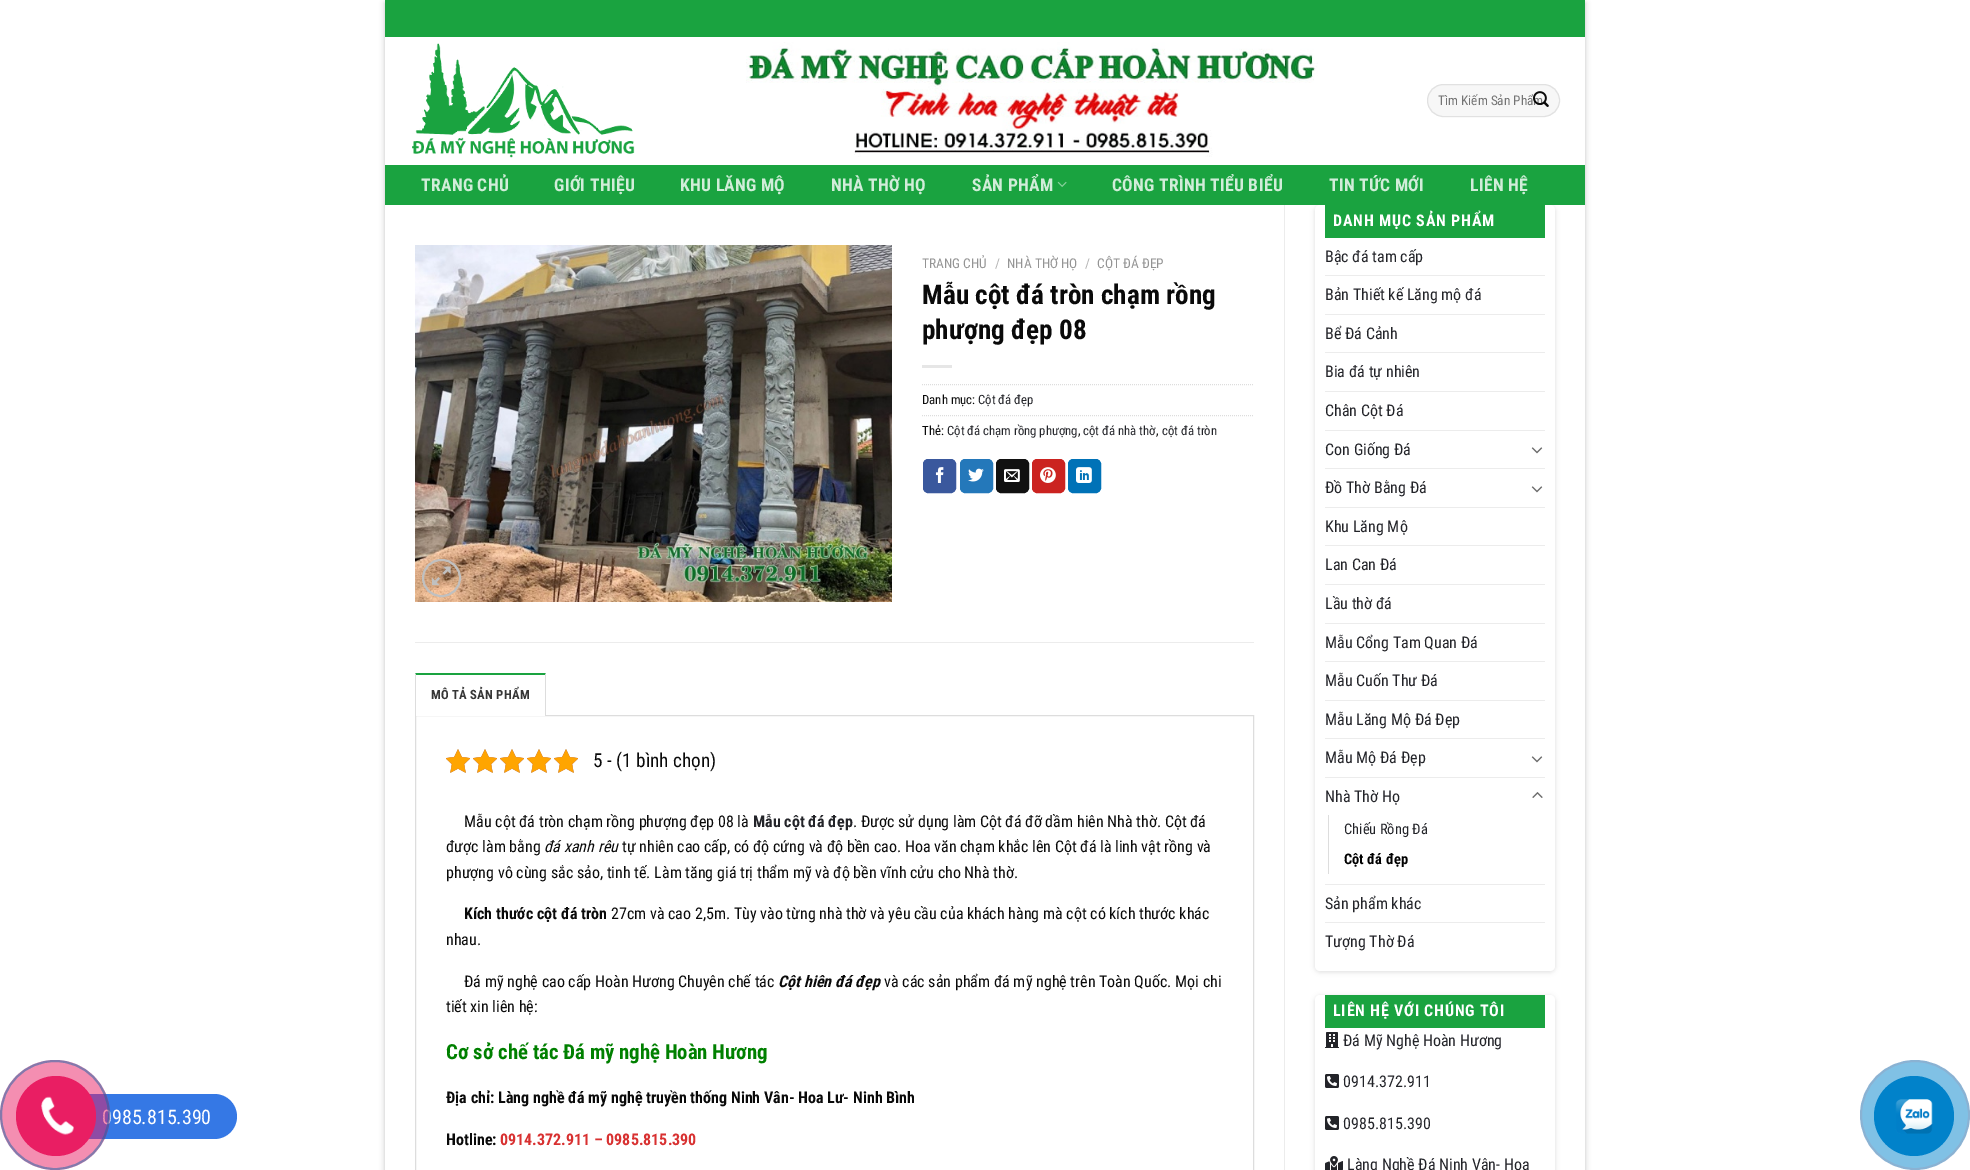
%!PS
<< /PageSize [1970 1170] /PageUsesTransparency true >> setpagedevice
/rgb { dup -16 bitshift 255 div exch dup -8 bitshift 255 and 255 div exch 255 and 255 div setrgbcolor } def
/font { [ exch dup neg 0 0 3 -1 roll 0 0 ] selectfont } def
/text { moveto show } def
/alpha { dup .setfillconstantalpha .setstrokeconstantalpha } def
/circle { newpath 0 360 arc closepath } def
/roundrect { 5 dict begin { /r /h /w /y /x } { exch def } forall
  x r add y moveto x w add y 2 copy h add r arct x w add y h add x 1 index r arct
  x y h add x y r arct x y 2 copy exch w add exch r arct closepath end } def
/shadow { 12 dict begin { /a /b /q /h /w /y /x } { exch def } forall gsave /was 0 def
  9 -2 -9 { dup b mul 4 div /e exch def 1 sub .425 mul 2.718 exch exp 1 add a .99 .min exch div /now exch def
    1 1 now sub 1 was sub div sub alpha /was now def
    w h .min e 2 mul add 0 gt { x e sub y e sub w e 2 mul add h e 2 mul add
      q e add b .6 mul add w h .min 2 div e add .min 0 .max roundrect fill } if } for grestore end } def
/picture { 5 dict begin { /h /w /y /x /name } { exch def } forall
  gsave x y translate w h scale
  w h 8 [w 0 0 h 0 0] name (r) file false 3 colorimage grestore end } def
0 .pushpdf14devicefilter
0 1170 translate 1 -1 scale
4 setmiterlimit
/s1 { /RobotoCondensed-Regular 20 font 16#FFFFFF rgb } def
/s2 { /RobotoCondensed-Regular 13.25 font 16#757575 rgb } def
/s3 { /RobotoCondensed-Regular 13.5 font 16#949494 rgb } def
/s4 { /RobotoCondensed-Regular 13.5 font 16#B2B2B2 rgb } def
/s5 { /RobotoCondensed-Bold 27.25 font 16#0A0A0A rgb } def
/s6 { /RobotoCondensed-Regular 12.75 font 16#0A0A0A rgb } def
/s7 { /RobotoCondensed-Regular 12.75 font 16#232429 rgb } def
/s8 { /RobotoCondensed-Regular 19.25 font 16#0A0A0A rgb } def
/s9 { /RobotoCondensed-Regular 16 font 16#0A0A0A rgb } def
/s10 { /RobotoCondensed-Bold 16 font 16#232429 rgb } def
/s11 { /RobotoCondensed-Italic 16 font 16#0A0A0A rgb } def
/s12 { /RobotoCondensed-Bold 16 font 16#0A0A0A rgb } def
/s13 { /RobotoCondensed-BoldItalic 16 font 16#0A0A0A rgb } def
/s14 { /RobotoCondensed-Bold 20.75 font 16#008000 rgb } def
/s15 { /RobotoCondensed-Bold 16 font 16#D83131 rgb } def
/s16 { /RobotoCondensed-Regular 16 font 16#232429 rgb } def
/s17 { /RobotoCondensed-Regular 14.5 font 16#232429 rgb } def
/s18 { /RobotoCondensed-Bold 14.5 font 16#000000 rgb } def
16#FFFFFF rgb
0 0 1970 1170 rectfill
gsave
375 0 moveto 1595 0 lineto 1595 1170 lineto 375 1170 lineto closepath 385 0 moveto 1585 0 lineto 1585 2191 lineto 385 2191 lineto closepath eoclip newpath
16#000000 rgb
385 3 1200 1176 0 3 0.23 shadow
grestore
16#3578E5 rgb
52 1094 185 45 22.5 roundrect fill
s1
(0985.815.390) 102 1124 text
0.5 alpha
16#E91E63 rgb
55 1115 55 circle fill
16#1564A7 rgb
2 setlinewidth
55 1115 54 circle stroke
1 alpha
16#E91E63 rgb
56 1116 40 circle fill
(pic1.raw) 41 1096 33 39 picture
16#1AA340 rgb
385 0 1200 37 rectfill
(pic2.raw) 412 43 223 115 picture
(pic3.raw) 746 42 572 115 picture
16#F7F7F7 rgb
1427 84 133 33 16.5 roundrect fill
0.09 alpha
16#000000 rgb
1 setlinewidth
1427.5 84.5 132 32 16 roundrect stroke
1 alpha
s2
(Tìm Kiếm Sản Phẩm) 1438 105 text
(pic4.raw) 1533 91 16 16 picture
16#DEDEDE rgb
1315 206 240 766 5 2.5 1 shadow
16#1AA340 rgb
385 165 1200 40 rectfill
/RobotoCondensed-Bold 17.5 font
16#D1EDD9 rgb
421 191 moveto 0.3 0 (TRANG CHỦ) ashow
554 191 moveto 0.3 0 (GIỚI THIỆU) ashow
680 191 moveto 0.3 0 (KHU LĂNG MỘ) ashow
831 191 moveto 0.3 0 (NHÀ THỜ HỌ) ashow
972 191 moveto 0.3 0 (SẢN PHẨM) ashow
(pic5.raw) 1057 181 10 6 picture
1112 191 moveto 0.3 0 (CÔNG TRÌNH TIỂU BIỂU) ashow
1329 191 moveto 0.3 0 (TIN TỨC MỚI) ashow
1470 191 moveto 0.3 0 (LIÊN HỆ) ashow
16#ECECEC rgb
1284 205 1 965 rectfill
(pic6.raw) 415 245 477 357 picture
16#C0C0C0 rgb
2 setlinewidth
423 560 37 36 18 roundrect stroke
(pic7.raw) 432 566 19 20 picture
s3
(TRANG CHỦ) 922 268 text
s4
(/) 995 268 text
s3
(NHÀ THỜ HỌ) 1007 268 text
s4
(/) 1085 268 text
s3
(CỘT ĐÁ ĐẸP) 1097 268 text
s5
(Mẫu cột đá tròn chạm rồng) 922 304 text
(phượng đẹp 08) 922 339 text
16#E6E6E6 rgb
922 365 30 3 rectfill
16#DDDDDD rgb
1 setlinewidth
[1 1] 0 setdash
922 384.5 moveto 1254 384.5 lineto stroke
s6
(Danh mục:) 922 404 text
s7
(Cột đá đẹp) 978 404 text
16#DDDDDD rgb
922 415.5 moveto 1254 415.5 lineto stroke
s6
(Thẻ:) 922 435 text
s7
(Cột đá chạm rồng phượng) 947 435 text
s6
(,) 1078 435 text
s7
(cột đá nhà thờ) 1083 435 text
s6
(,) 1156 435 text
s7
(cột đá tròn) 1162 435 text
16#3A589D rgb
923.5 459.5 32 33 4.5 roundrect gsave fill grestore
[] 0 setdash
stroke
(pic8.raw) 935 467 9 16 picture
16#2478BA rgb
960.5 459.5 32 33 4.5 roundrect gsave fill grestore
stroke
(pic9.raw) 968 468 16 14 picture
16#111111 rgb
996.5 459.5 32 33 4.5 roundrect gsave fill grestore
stroke
(pic10.raw) 1004 469 16 13 picture
16#CB2320 rgb
1032.5 459.5 32 33 4.5 roundrect gsave fill grestore
stroke
(pic11.raw) 1040 467 16 16 picture
16#0072B7 rgb
1068.5 459.5 32 33 4.5 roundrect gsave fill grestore
stroke
(pic12.raw) 1076 467 16 16 picture
16#ECECEC rgb
415 642 839 1 rectfill
16#DDDDDD rgb
415.5 715.5 838 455 rectstroke
16#FFFFFF rgb
415 715 131 1 rectfill
16#1AA340 rgb
415 673 moveto 546 673 lineto 545 675 lineto 416 675 lineto closepath fill
16#DDDDDD rgb
546 673 moveto 546 716 lineto 545 716 lineto 545 675 lineto closepath fill
415 716 moveto 415 673 lineto 416 675 lineto 416 716 lineto closepath fill
/RobotoCondensed-Bold 12.75 font
16#363636 rgb
431 699 moveto 0.25 0 (MÔ TẢ SẢN PHẨM) ashow
(pic13.raw) 446 749 24 24 picture
(pic13.raw) 473 749 24 24 picture
(pic13.raw) 500 749 24 24 picture
(pic13.raw) 527 749 24 24 picture
(pic13.raw) 554 749 24 24 picture
(pic14.raw) 446 749 24 24 picture
(pic14.raw) 473 749 24 24 picture
(pic14.raw) 500 749 24 24 picture
(pic14.raw) 527 749 24 24 picture
(pic14.raw) 554 749 24 24 picture
s8
(5 - \(1 bình chọn\)) 593 767 text
s9
(Mẫu cột đá tròn chạm rồng phượng đẹp 08 là) 464 827 text
s10
(Mẫu cột đá đẹp) 753 827 text
s9
(. Được sử dụng làm Cột đá đỡ dầm hiên Nhà thờ. Cột đá) 853 827 text
(được làm bằng) 446 852 text
s11
(đá xanh rêu) 544 852 text
s9
(tự nhiên cao cấp, có độ cứng và độ bền cao. Hoa văn chạm khắc lên Cột đá là linh vật rồng và) 622 852 text
(phượng vô cùng sắc sảo, tinh tế. Làm tăng giá trị thẩm mỹ và độ bền vĩnh cửu cho Nhà thờ.) 446 878 text
s12
(Kích thước cột đá tròn) 464 919 text
s9
(27cm và cao 2,5m. Tùy vào từng nhà thờ và yêu cầu của khách hàng mà cột có kích thước khác) 611 919 text
(nhau.) 446 945 text
(Đá mỹ nghệ cao cấp Hoàn Hương Chuyên chế tác) 464 987 text
s13
(Cột hiên đá đẹp) 778 987 text
s9
(và các sản phẩm đá mỹ nghệ trên Toàn Quốc. Mọi chi) 884 987 text
(tiết xin liên hệ:) 446 1012 text
s14
(Cơ sở chế tác Đá mỹ nghệ Hoàn Hương) 446 1059 text
s12
(Địa chỉ: Làng nghề đá mỹ nghệ truyền thống Ninh Vân- Hoa Lư- Ninh Bình) 446 1103 text
(Hotline:) 446 1145 text
s15
(0914.372.911 – 0985.815.390) 500 1145 text
16#FFFFFF rgb
1315 205 240 766 5 roundrect fill
16#1AA340 rgb
1325 205 220 33 rectfill
16#FFFFFF rgb
1333 226 moveto 0.8 0 (DANH MỤC SẢN PHẨM) ashow
s16
(Bậc đá tam cấp) 1325 262 text
16#ECECEC rgb
1325 275 220 1 rectfill
s16
(Bản Thiết kế Lăng mộ đá) 1325 300 text
16#ECECEC rgb
1325 314 220 1 rectfill
s16
(Bể Đá Cảnh) 1325 339 text
16#ECECEC rgb
1325 352 220 1 rectfill
s16
(Bia đá tự nhiên) 1325 377 text
16#ECECEC rgb
1325 391 220 1 rectfill
s16
(Chân Cột Đá) 1325 416 text
16#ECECEC rgb
1325 430 220 1 rectfill
s16
(Con Giống Đá) 1325 455 text
(pic15.raw) 1531 447 12 7 picture
16#ECECEC rgb
1325 468 220 1 rectfill
s16
(Đồ Thờ Bằng Đá) 1325 493 text
(pic15.raw) 1531 486 12 7 picture
16#ECECEC rgb
1325 507 220 1 rectfill
s16
(Khu Lăng Mộ) 1325 532 text
16#ECECEC rgb
1325 545 220 1 rectfill
s16
(Lan Can Đá) 1325 570 text
16#ECECEC rgb
1325 584 220 1 rectfill
s16
(Lầu thờ đá) 1325 609 text
16#ECECEC rgb
1325 623 220 1 rectfill
s16
(Mẫu Cổng Tam Quan Đá) 1325 648 text
16#ECECEC rgb
1325 661 220 1 rectfill
s16
(Mẫu Cuốn Thư Đá) 1325 686 text
16#ECECEC rgb
1325 700 220 1 rectfill
s16
(Mẫu Lăng Mộ Đá Đẹp) 1325 725 text
16#ECECEC rgb
1325 738 220 1 rectfill
s16
(Mẫu Mộ Đá Đẹp) 1325 763 text
(pic15.raw) 1531 756 12 7 picture
16#ECECEC rgb
1325 777 220 1 rectfill
s16
(Nhà Thờ Họ) 1325 802 text
(pic16.raw) 1532 792 11 6 picture
16#DDDDDD rgb
1328 815 1 59 rectfill
s17
(Chiếu Rồng Đá) 1344 834 text
s18
(Cột đá đẹp) 1344 864 text
16#ECECEC rgb
1325 884 220 1 rectfill
s16
(Sản phẩm khác) 1325 909 text
16#ECECEC rgb
1325 922 220 1 rectfill
s16
(Tượng Thờ Đá) 1325 947 text
16#DEDEDE rgb
1315 996 240 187 5 2.5 1 shadow
16#FFFFFF rgb
1315 995 240 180 5 roundrect fill
16#1AA340 rgb
1325 995 220 33 rectfill
/RobotoCondensed-Bold 16 font
16#FFFFFF rgb
1333 1016 moveto 0.8 0 (LIÊN HỆ VỚI CHÚNG TÔI) ashow
(pic17.raw) 1325 1032 14 16 picture
s16
(Đá Mỹ Nghệ Hoàn Hương) 1343 1046 text
(pic18.raw) 1325 1074 14 14 picture
(0914.372.911) 1343 1087 text
(pic18.raw) 1325 1116 14 14 picture
(0985.815.390) 1343 1129 text
(pic19.raw) 1325 1156 18 14 picture
(Làng Nghề Đá Ninh Vân- Hoa) 1347 1170 text
16#80C1E5 rgb
1915 1115 54 circle gsave fill grestore
16#8AB2D3 rgb
2 setlinewidth
stroke
16#0182CA rgb
1914 1116 40 circle fill
(pic20.raw) 1895 1099 38 35 picture
.poppdf14devicefilter showpage
